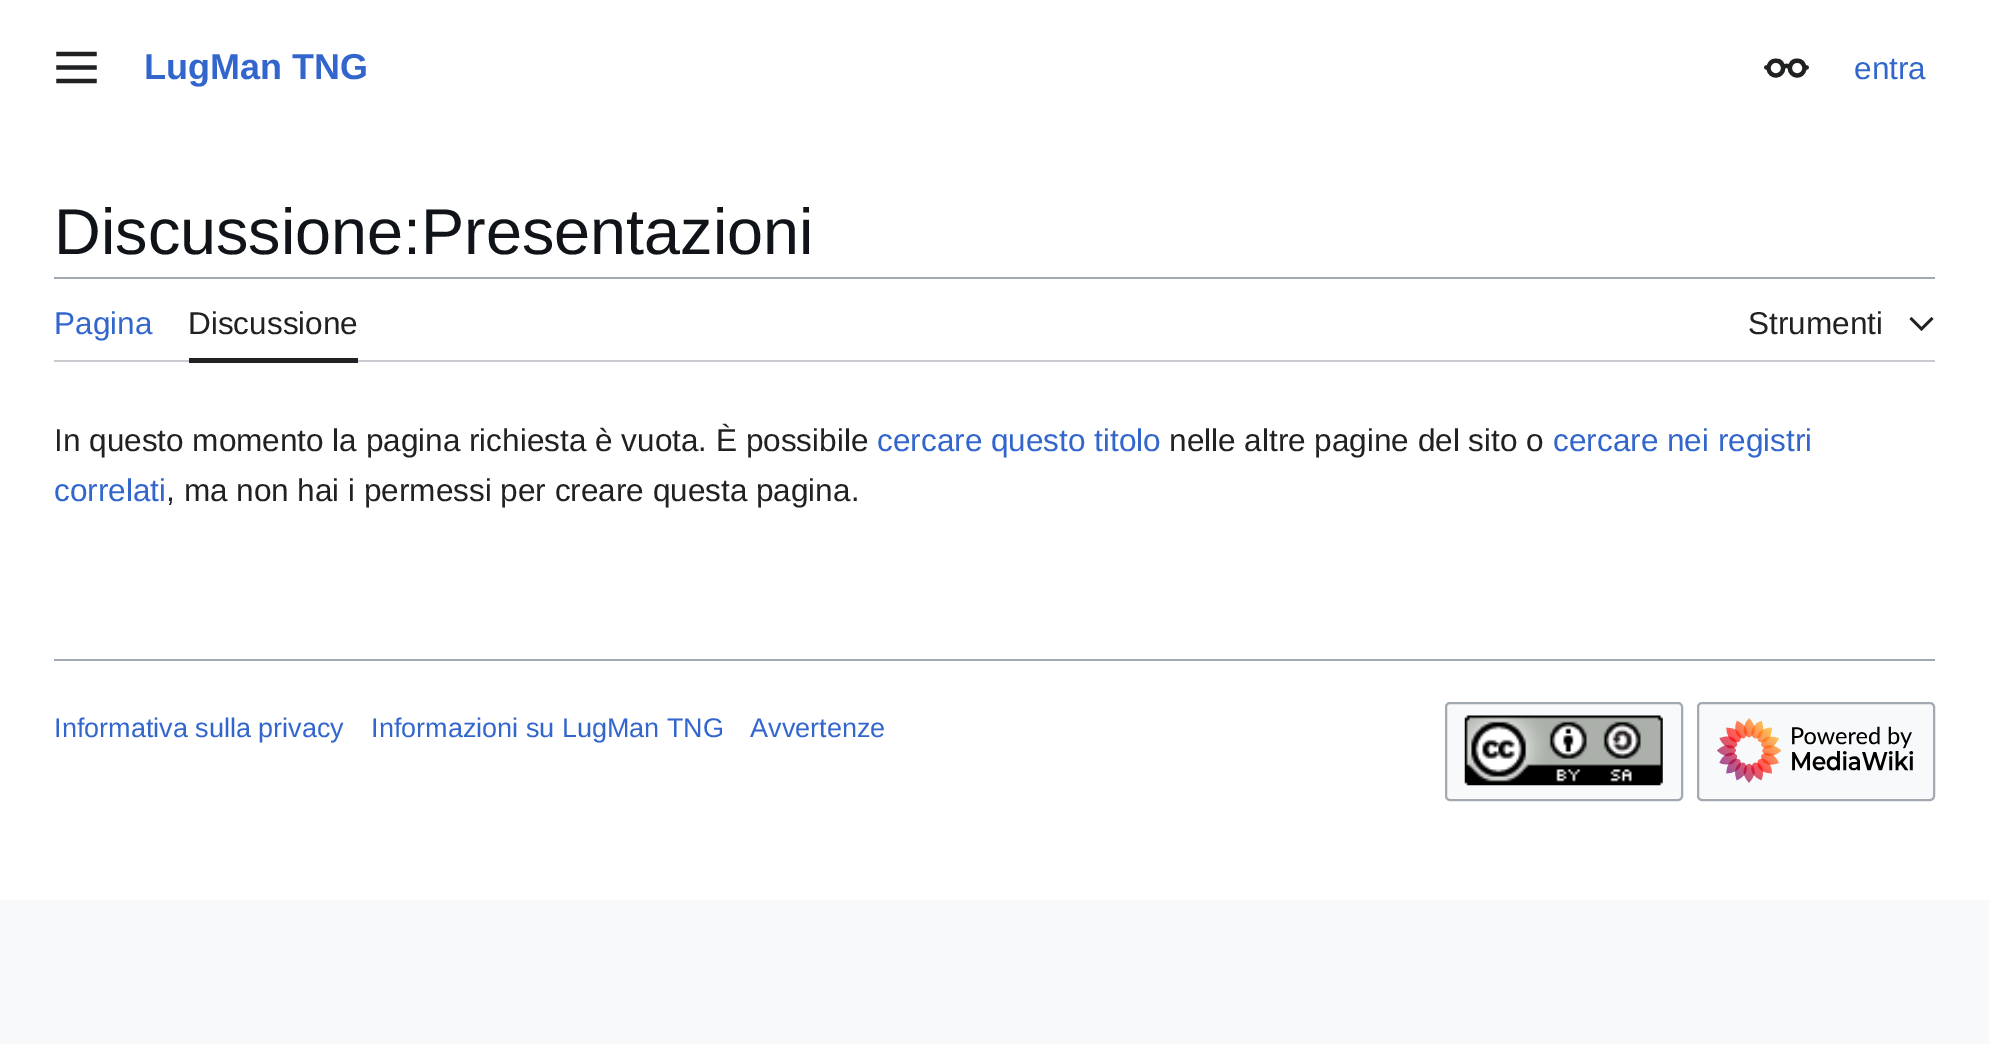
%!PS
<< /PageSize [1989 1044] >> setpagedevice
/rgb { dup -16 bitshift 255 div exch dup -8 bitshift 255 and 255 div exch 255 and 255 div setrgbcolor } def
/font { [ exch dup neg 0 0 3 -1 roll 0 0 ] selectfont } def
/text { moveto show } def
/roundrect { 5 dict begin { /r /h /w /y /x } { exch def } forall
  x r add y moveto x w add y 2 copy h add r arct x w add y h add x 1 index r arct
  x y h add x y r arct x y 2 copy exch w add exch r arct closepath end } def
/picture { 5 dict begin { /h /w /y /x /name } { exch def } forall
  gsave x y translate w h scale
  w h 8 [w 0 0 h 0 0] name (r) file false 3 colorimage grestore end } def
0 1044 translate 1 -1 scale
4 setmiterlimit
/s1 { /LiberationSans-Bold 36 font 16#3366CC rgb } def
/s2 { /LiberationSans-Regular 31.5 font 16#3366CC rgb } def
/s3 { /LiberationSans-Regular 64.75 font 16#101418 rgb } def
/s4 { /LiberationSans-Regular 31.5 font 16#202122 rgb } def
/s5 { /LiberationSans-Regular 27 font 16#3366CC rgb } def
16#F8F9FA rgb
0 0 1989 1044 rectfill
16#FFFFFF rgb
0 0 1989 900 rectfill
(pic1.raw) 56 51 41 33 picture
s1
(LugMan TNG) 144 79 text
(pic2.raw) 1764 58 45 20 picture
s2
(entra) 1854 79 text
s3
(Discussione:Presentazioni) 54 254 text
16#A2A9B1 rgb
54 277 1881 2 rectfill
16#C8CCD1 rgb
54 360 1881 2 rectfill
s2
(Pagina) 54 334 text
16#202122 rgb
189 358 169 5 rectfill
(Discussione) 188 334 text
(Strumenti) 1748 334 text
1931.5 317 moveto 1921.5 327 lineto 1911.5 317 lineto 1909.5 319 lineto 1921.5 331 lineto 1933.5 319 lineto closepath fill
(In questo momento la pagina richiesta è vuota. È possibile) 54 451 text
s2
(cercare questo titolo) 877 451 text
s4
(nelle altre pagine del sito o) 1169 451 text
s2
(cercare nei registri) 1553 451 text
(correlati) 54 501 text
s4
(, ma non hai i permessi per creare questa pagina.) 166 501 text
16#A2A9B1 rgb
54 659 1881 2 rectfill
s5
(Informativa sulla privacy) 54 737 text
(Informazioni su LugMan TNG) 371 737 text
(Avvertenze) 750 737 text
16#F8F9FA rgb
1446 703 236 97 4 roundrect gsave fill grestore
16#A2A9B1 rgb
2 setlinewidth
stroke
(pic3.raw) 1464 715 199 71 picture
16#F8F9FA rgb
1698 703 236 97 4 roundrect gsave fill grestore
16#A2A9B1 rgb
stroke
(pic4.raw) 1717 718 197 65 picture
showpage
